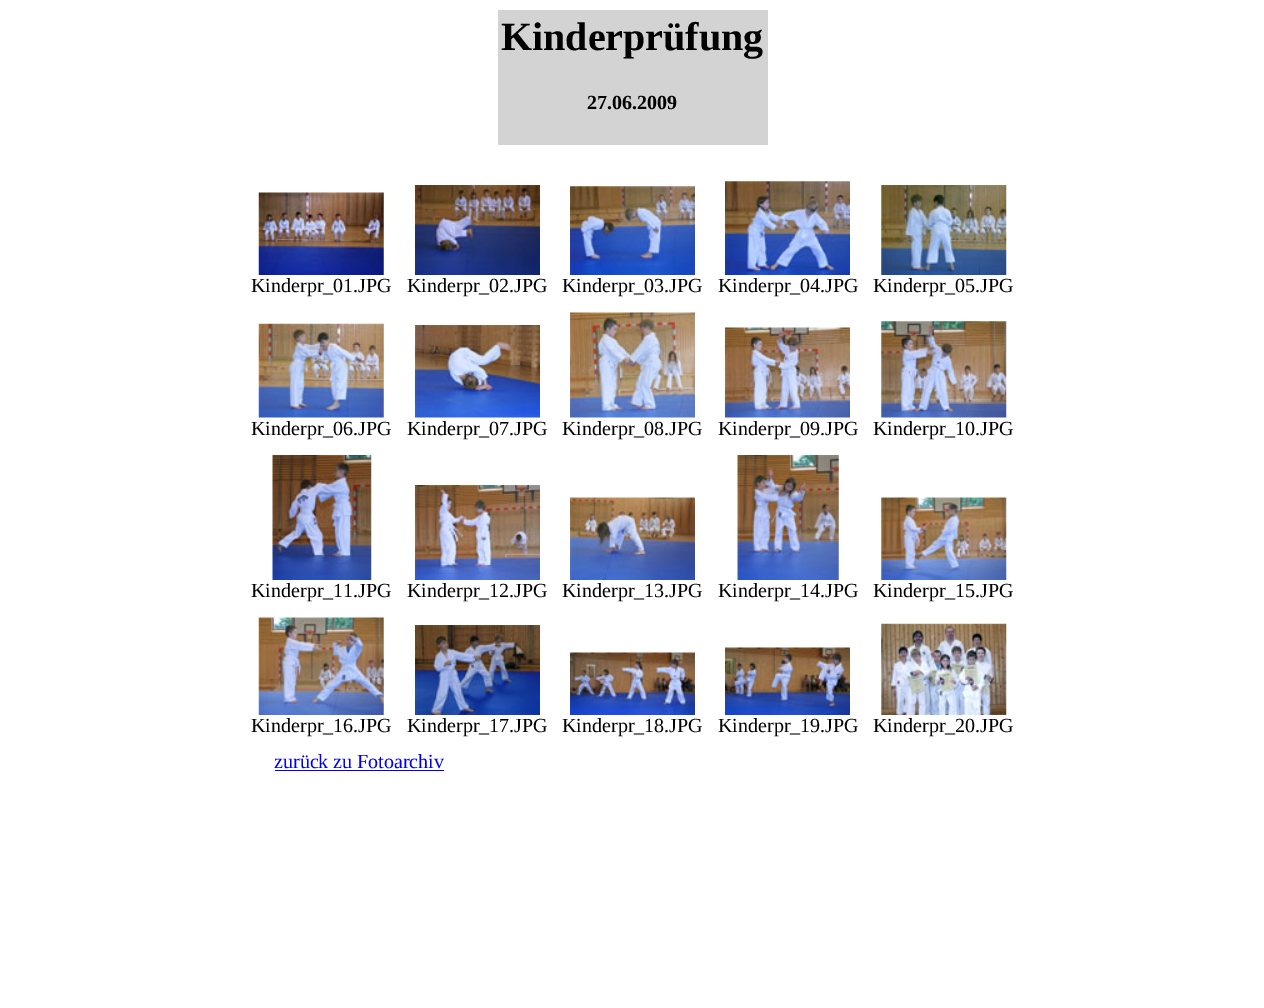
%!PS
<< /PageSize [1264 1008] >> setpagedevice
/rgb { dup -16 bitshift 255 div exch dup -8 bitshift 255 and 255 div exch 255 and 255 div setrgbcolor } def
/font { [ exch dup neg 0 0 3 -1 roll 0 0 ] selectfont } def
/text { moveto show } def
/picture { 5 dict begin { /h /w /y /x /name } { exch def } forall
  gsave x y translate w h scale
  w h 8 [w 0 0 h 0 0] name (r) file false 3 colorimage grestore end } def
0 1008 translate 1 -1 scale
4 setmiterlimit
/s1 { /LiberationSerif-Bold 40 font 16#000000 rgb } def
/s2 { /LiberationSerif-Bold 20 font 16#000000 rgb } def
/s3 { /LiberationSerif-Regular 20 font 16#000000 rgb } def
/s4 { /LiberationSerif-Regular 20 font 16#0000EE rgb } def
16#FFFFFF rgb
0 0 1264 1008 rectfill
16#D3D3D3 rgb
498 10 270 135 rectfill
s1
(Kinderprüfung) 501 50 text
s2
(27.06.2009) 587 109 text
(pic1.raw) 258 192 126 83 picture
s3
(Kinderpr_01.JPG) 251 292 text
(pic2.raw) 415 185 125 90 picture
(Kinderpr_02.JPG) 407 292 text
(pic3.raw) 570 186 125 89 picture
(Kinderpr_03.JPG) 562 292 text
(pic4.raw) 725 181 125 94 picture
(Kinderpr_04.JPG) 718 292 text
(pic5.raw) 881 185 126 90 picture
(Kinderpr_05.JPG) 873 292 text
(pic6.raw) 258 323 126 95 picture
(Kinderpr_06.JPG) 251 435 text
(pic7.raw) 415 325 125 93 picture
(Kinderpr_07.JPG) 407 435 text
(pic8.raw) 570 312 125 106 picture
(Kinderpr_08.JPG) 562 435 text
(pic9.raw) 725 327 125 91 picture
(Kinderpr_09.JPG) 718 435 text
(pic10.raw) 881 321 126 97 picture
(Kinderpr_10.JPG) 873 435 text
(pic11.raw) 272 455 100 125 picture
(Kinderpr_11.JPG) 251 597 text
(pic12.raw) 415 485 125 95 picture
(Kinderpr_12.JPG) 407 597 text
(pic13.raw) 570 497 125 83 picture
(Kinderpr_13.JPG) 562 597 text
(pic14.raw) 737 455 102 125 picture
(Kinderpr_14.JPG) 718 597 text
(pic15.raw) 881 497 126 83 picture
(Kinderpr_15.JPG) 873 597 text
(pic16.raw) 258 617 126 98 picture
(Kinderpr_16.JPG) 251 732 text
(pic17.raw) 415 625 125 90 picture
(Kinderpr_17.JPG) 407 732 text
(pic18.raw) 570 652 125 63 picture
(Kinderpr_18.JPG) 562 732 text
(pic19.raw) 725 647 125 68 picture
(Kinderpr_19.JPG) 718 732 text
(pic20.raw) 881 623 126 92 picture
(Kinderpr_20.JPG) 873 732 text
s4
(zurück zu Fotoarchiv) 274 768 text
275 770 169 1 rectfill
showpage
